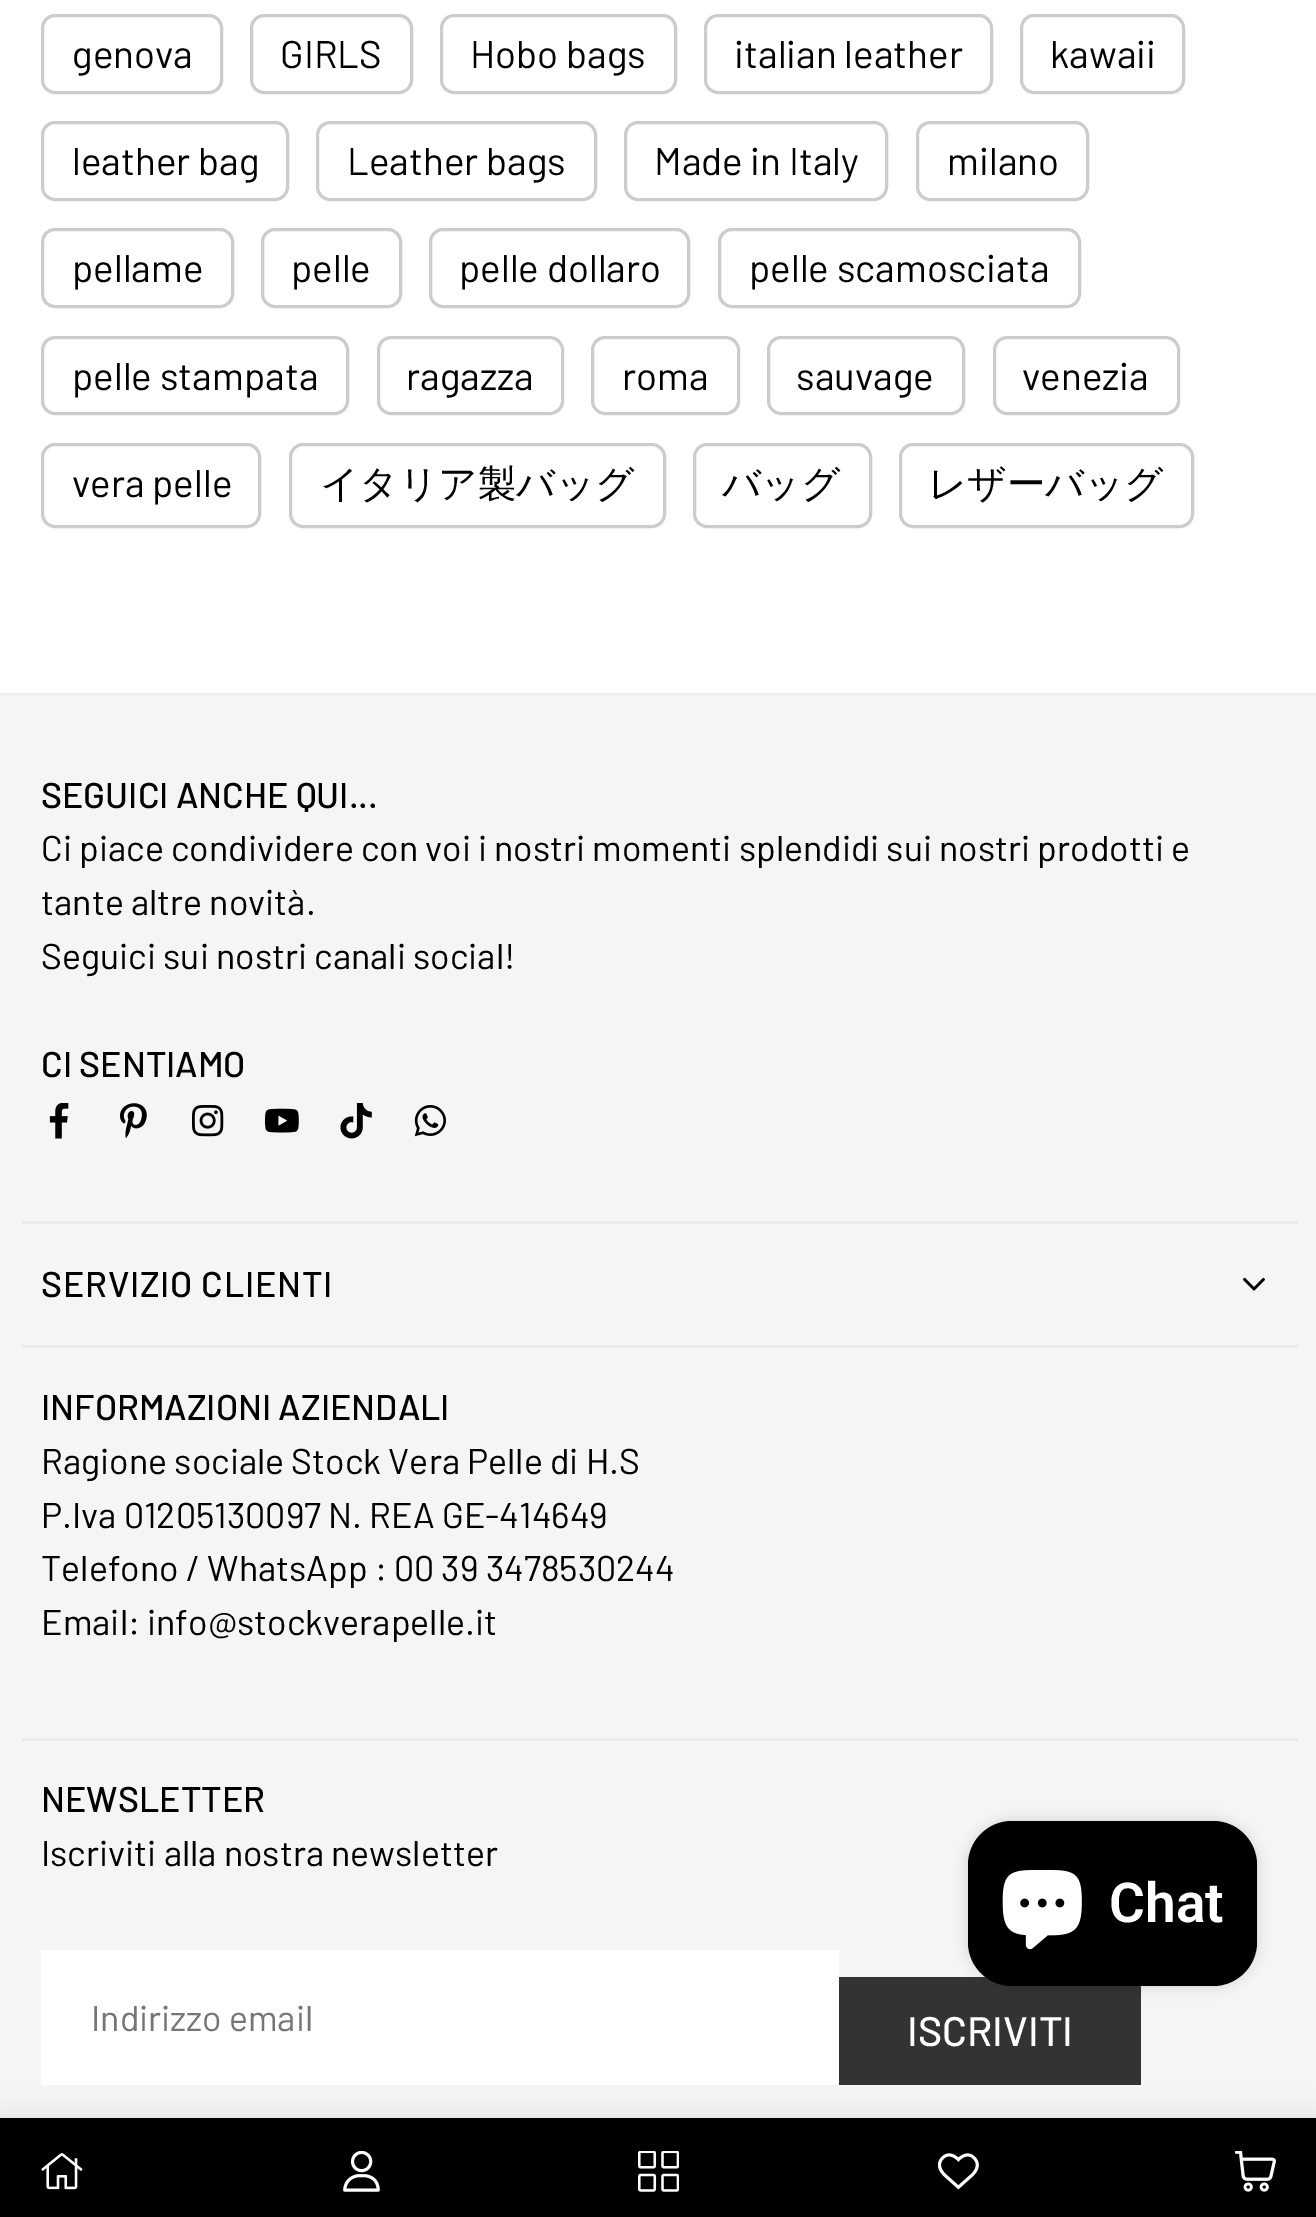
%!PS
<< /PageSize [1316 2217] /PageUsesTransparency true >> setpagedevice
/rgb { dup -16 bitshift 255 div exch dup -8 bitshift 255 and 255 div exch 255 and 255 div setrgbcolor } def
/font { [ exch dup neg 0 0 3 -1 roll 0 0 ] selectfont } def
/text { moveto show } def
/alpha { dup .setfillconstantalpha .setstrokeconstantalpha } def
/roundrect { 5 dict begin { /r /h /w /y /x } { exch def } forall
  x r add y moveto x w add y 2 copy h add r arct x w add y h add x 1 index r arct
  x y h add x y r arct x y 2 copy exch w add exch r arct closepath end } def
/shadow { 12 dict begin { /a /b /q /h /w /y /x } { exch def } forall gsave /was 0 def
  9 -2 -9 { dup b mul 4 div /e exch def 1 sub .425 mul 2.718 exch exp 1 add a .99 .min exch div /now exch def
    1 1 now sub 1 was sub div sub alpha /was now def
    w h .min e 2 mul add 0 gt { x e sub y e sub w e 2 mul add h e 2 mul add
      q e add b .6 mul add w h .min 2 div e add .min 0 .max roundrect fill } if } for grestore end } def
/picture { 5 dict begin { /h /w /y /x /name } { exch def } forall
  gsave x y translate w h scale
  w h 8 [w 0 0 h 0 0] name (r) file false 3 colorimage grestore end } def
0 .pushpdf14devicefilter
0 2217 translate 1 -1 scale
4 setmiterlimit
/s1 { /Barlow-Regular 38.5 font 16#000000 rgb } def
/s2 { /WenQuanYiZenHei-Medium 38.5 font 16#000000 rgb } def
/s3 { /Barlow-Medium 35.75 font 16#000000 rgb } def
/s4 { /Barlow-Regular 35.75 font 16#000000 rgb } def
/s5 { /Barlow-Regular 35.75 font 16#757575 rgb } def
/s6 { /Barlow-Medium 41.25 font 16#FFFFFF rgb } def
/s7 { /Roboto-SemiBold 55 font 16#FFFFFF rgb } def
16#FFFFFF rgb
0 0 1316 2217 rectfill
16#CCCCCC rgb
3 setlinewidth
42.5 15.5 179 77 12.5 roundrect stroke
s1
(genova) 72 68 text
16#CCCCCC rgb
251.5 15.5 160 77 12.5 roundrect stroke
s1
(GIRLS) 280 68 text
16#CCCCCC rgb
441.5 15.5 234 77 12.5 roundrect stroke
s1
(Hobo bags) 470 68 text
16#CCCCCC rgb
705.5 15.5 286 77 12.5 roundrect stroke
s1
(italian leather) 734 68 text
16#CCCCCC rgb
1021.5 15.5 162 77 12.5 roundrect stroke
s1
(kawaii) 1050 68 text
16#CCCCCC rgb
42.5 122.5 245 77 12.5 roundrect stroke
s1
(leather bag) 72 175 text
16#CCCCCC rgb
317.5 122.5 278 77 12.5 roundrect stroke
s1
(Leather bags) 347 175 text
16#CCCCCC rgb
625.5 122.5 261 77 12.5 roundrect stroke
s1
(Made in Italy) 654 175 text
16#CCCCCC rgb
917.5 122.5 170 77 12.5 roundrect stroke
s1
(milano) 947 175 text
16#CCCCCC rgb
42.5 229.5 190 77 12.5 roundrect stroke
s1
(pellame) 72 282 text
16#CCCCCC rgb
262.5 229.5 138 77 12.5 roundrect stroke
s1
(pelle) 291 282 text
16#CCCCCC rgb
430.5 229.5 258 77 12.5 roundrect stroke
s1
(pelle dollaro) 459 282 text
16#CCCCCC rgb
719.5 229.5 360 77 12.5 roundrect stroke
s1
(pelle scamosciata) 749 282 text
16#CCCCCC rgb
42.5 337.5 305 76 12.5 roundrect stroke
s1
(pelle stampata) 72 390 text
16#CCCCCC rgb
378.5 337.5 184 76 12.5 roundrect stroke
s1
(ragazza) 406 390 text
16#CCCCCC rgb
592.5 337.5 146 76 12.5 roundrect stroke
s1
(roma) 622 390 text
16#CCCCCC rgb
768.5 337.5 195 76 12.5 roundrect stroke
s1
(sauvage) 796 390 text
16#CCCCCC rgb
994.5 337.5 184 76 12.5 roundrect stroke
s1
(venezia) 1022 390 text
16#CCCCCC rgb
42.5 444.5 217 82 12.5 roundrect stroke
s1
(vera pelle) 72 497 text
16#CCCCCC rgb
290.5 444.5 374 82 12.5 roundrect stroke
s2
(イタリア製バッグ) 320 497 text
16#CCCCCC rgb
694.5 444.5 176 82 12.5 roundrect stroke
s2
(バッグ) 722 497 text
16#CCCCCC rgb
900.5 444.5 292 82 12.5 roundrect stroke
s2
(レザーバッグ) 928 497 text
16#F5F5F5 rgb
0 696 1316 1422 rectfill
16#EEEEEE rgb
0 693 1316 3 rectfill
s3
(SEGUICI ANCHE QUI...) 41 808 text
s4
(Ci piace condividere con voi i nostri momenti splendidi sui nostri prodotti e) 41 861 text
(tante altre novità.) 41 915 text
(Seguici sui nostri canali social!) 41 969 text
s3
(CI SENTIAMO) 41 1077 text
(pic1.raw) 49 1103 20 36 picture
(pic2.raw) 120 1103 27 35 picture
(pic3.raw) 192 1105 32 32 picture
(pic4.raw) 264 1108 35 25 picture
(pic5.raw) 340 1103 32 36 picture
(pic6.raw) 414 1105 32 32 picture
16#EDE9E9 rgb
22 1221 1276 3 rectfill
16#000000 rgb
41 1297 moveto 0.75 0 (SERVIZIO CLIENTI) ashow
(pic7.raw) 1243 1277 22 14 picture
16#EDE9E9 rgb
22 1345 1276 3 rectfill
s3
(INFORMAZIONI AZIENDALI) 41 1420 text
s4
(Ragione sociale Stock Vera Pelle di H.S) 41 1474 text
(P.Iva 01205130097 N. REA GE-414649) 41 1528 text
(Telefono / WhatsApp : 00 39 3478530244) 41 1581 text
(Email: info@stockverapelle.it) 41 1635 text
16#EDE9E9 rgb
22 1738 1276 3 rectfill
s3
(NEWSLETTER) 41 1812 text
s4
(Iscriviti alla nostra newsletter) 41 1866 text
16#FFFFFF rgb
41 1950 798 135 rectfill
s5
(Indirizzo email) 91 2031 text
16#333333 rgb
839 1977 302 108 rectfill
s6
(ISCRIVITI) 907 2046 text
16#000000 rgb
968 1821 289 165 44 7 0.15 shadow
968 1821 289 165 44 roundrect fill
(pic8.raw) 1002 1870 80 80 picture
s7
(Chat) 1109 1922 text
16#000000 rgb
0 2118 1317 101 0 14 0.1 shadow
0 2118 1316 99 rectfill
(pic9.raw) 41 2153 42 37 picture
(pic10.raw) 343 2151 37 41 picture
(pic11.raw) 638 2151 41 41 picture
(pic12.raw) 938 2153 41 37 picture
(pic13.raw) 1235 2151 41 41 picture
.poppdf14devicefilter showpage
